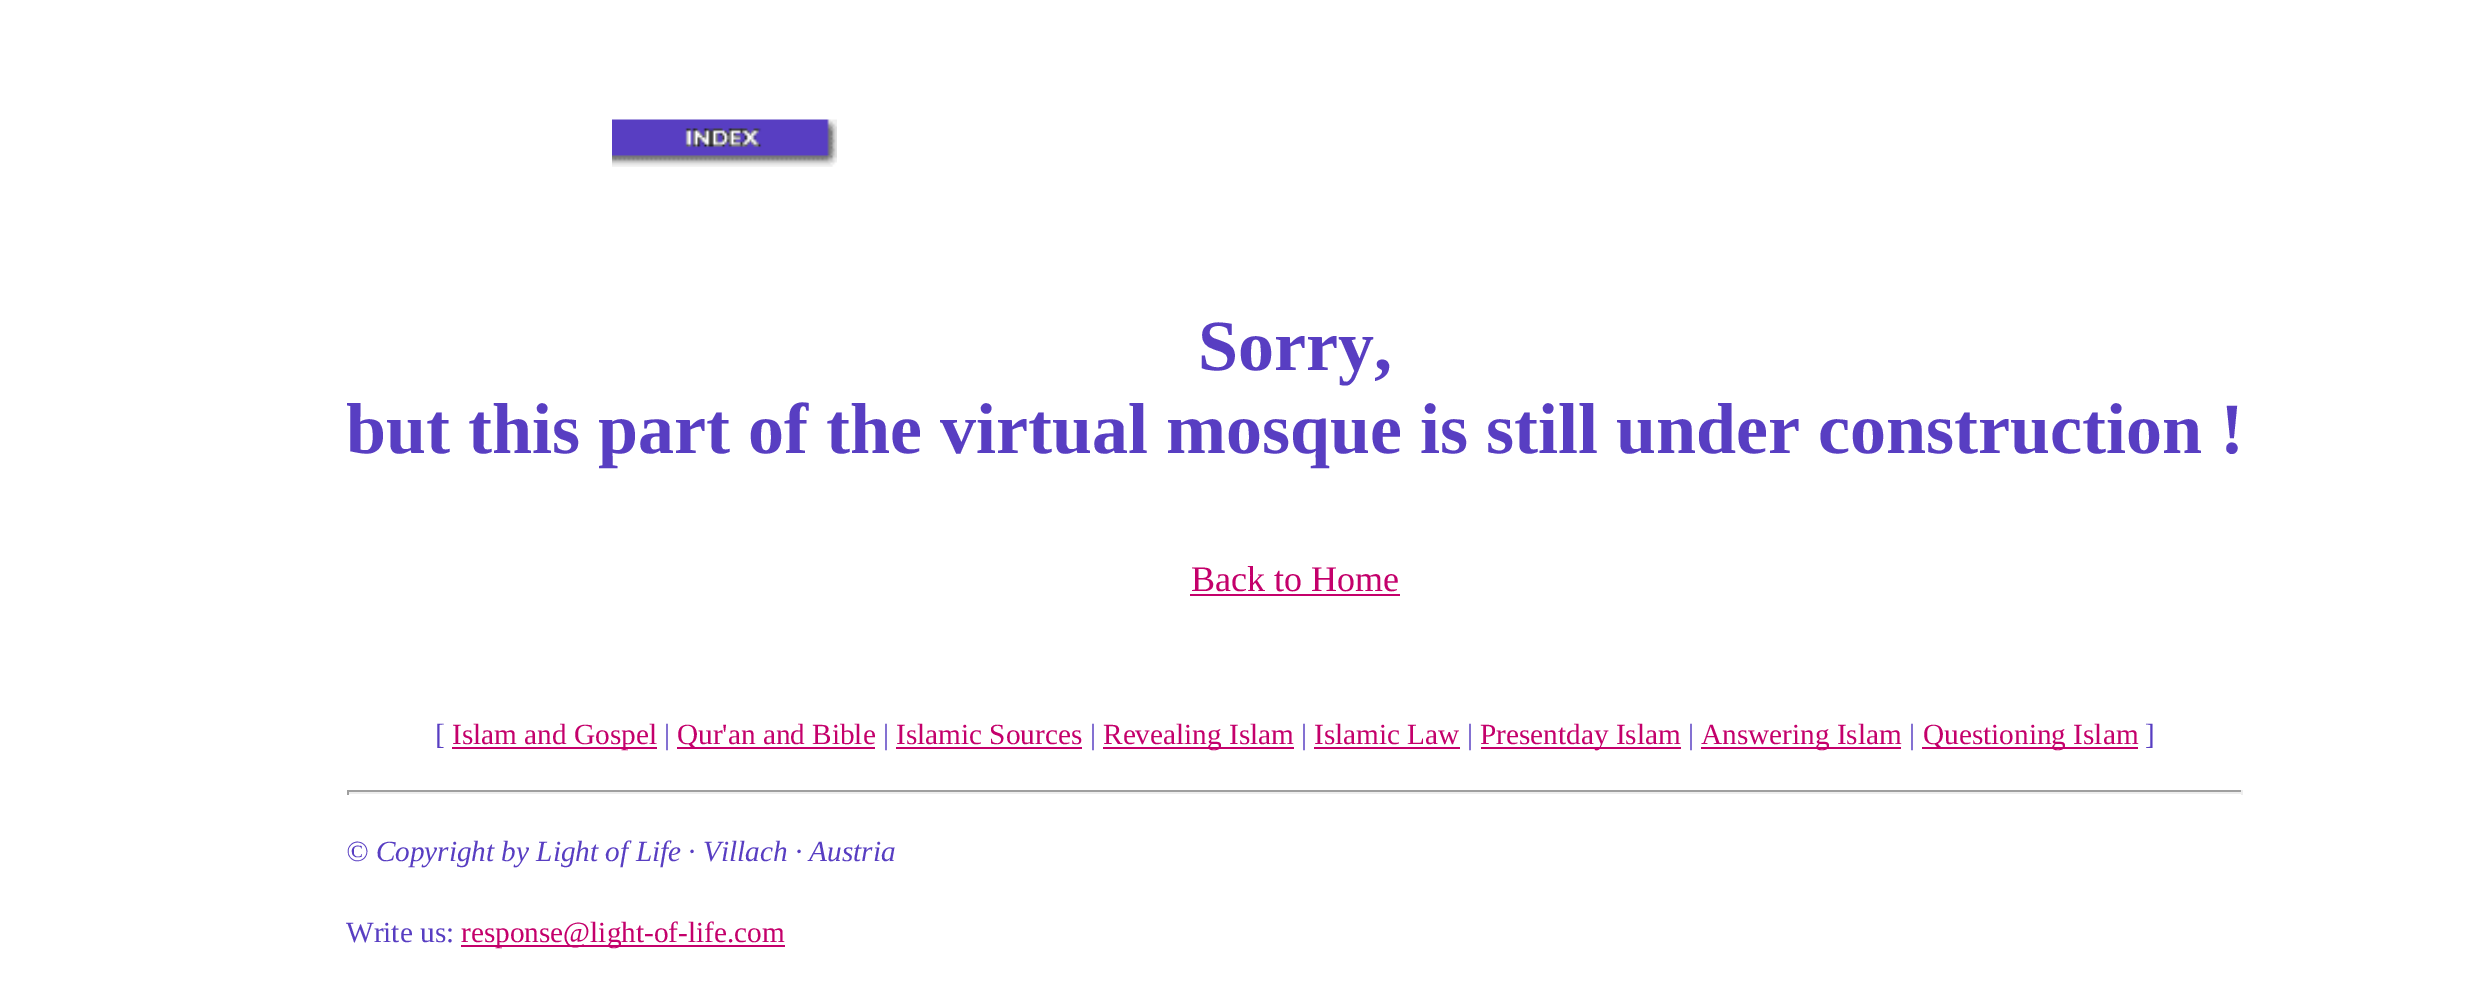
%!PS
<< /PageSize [2476 1005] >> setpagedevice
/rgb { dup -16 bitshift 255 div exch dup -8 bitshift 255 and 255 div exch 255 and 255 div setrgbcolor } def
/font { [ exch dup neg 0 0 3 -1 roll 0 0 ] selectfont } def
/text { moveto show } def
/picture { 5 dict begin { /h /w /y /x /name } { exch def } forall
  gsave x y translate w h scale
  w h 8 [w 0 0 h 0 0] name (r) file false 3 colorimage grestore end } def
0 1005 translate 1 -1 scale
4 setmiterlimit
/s1 { /LiberationSerif-Bold 72 font 16#583EC2 rgb } def
/s2 { /LiberationSerif-Regular 36 font 16#C4006B rgb } def
/s3 { /LiberationSerif-Regular 29.25 font 16#583EC2 rgb } def
/s4 { /LiberationSerif-Regular 29.25 font 16#C4006B rgb } def
/s5 { /LiberationSerif-Italic 29.25 font 16#583EC2 rgb } def
16#FFFFFF rgb
0 0 2476 1005 rectfill
(pic1.raw) 612 119 225 48 picture
s1
(Sorry,) 1198 370 text
(but this part of the virtual mosque is still under construction !) 346 453 text
s2
(Back to Home) 1191 591 text
1190 594 210 2 rectfill
s3
([) 435 744 text
16#C4006B rgb
452 747 205 2 rectfill
(Islam and Gospel) 452 744 text
s3
(|) 664 744 text
16#C4006B rgb
677 747 198 2 rectfill
(Qur'an and Bible) 677 744 text
s3
(|) 883 744 text
s4
(Islamic Sources) 896 744 text
896 747 186 2 rectfill
s3
(|) 1090 744 text
16#C4006B rgb
1103 747 191 2 rectfill
(Revealing Islam) 1103 744 text
s3
(|) 1301 744 text
s4
(Islamic Law) 1314 744 text
1314 747 146 2 rectfill
s3
(|) 1467 744 text
16#C4006B rgb
1481 747 200 2 rectfill
(Presentday Islam) 1480 744 text
s3
(|) 1688 744 text
16#C4006B rgb
1701 747 200 2 rectfill
(Answering Islam) 1701 744 text
s3
(|) 1909 744 text
16#C4006B rgb
1922 747 216 2 rectfill
(Questioning Islam) 1923 744 text
s3
(]) 2145 744 text
16#9F9F9F rgb
347 790 1896 2 rectfill
16#EEEEEE rgb
2241 790 2 5 rectfill
347 792 1896 2 rectfill
16#9F9F9F rgb
347 790 2 5 rectfill
s5
(© Copyright by Light of Life · Villach · Austria) 346 861 text
s3
(Write us:) 346 942 text
16#C4006B rgb
461 945 324 2 rectfill
(response@light-of-life.com) 461 942 text
showpage
